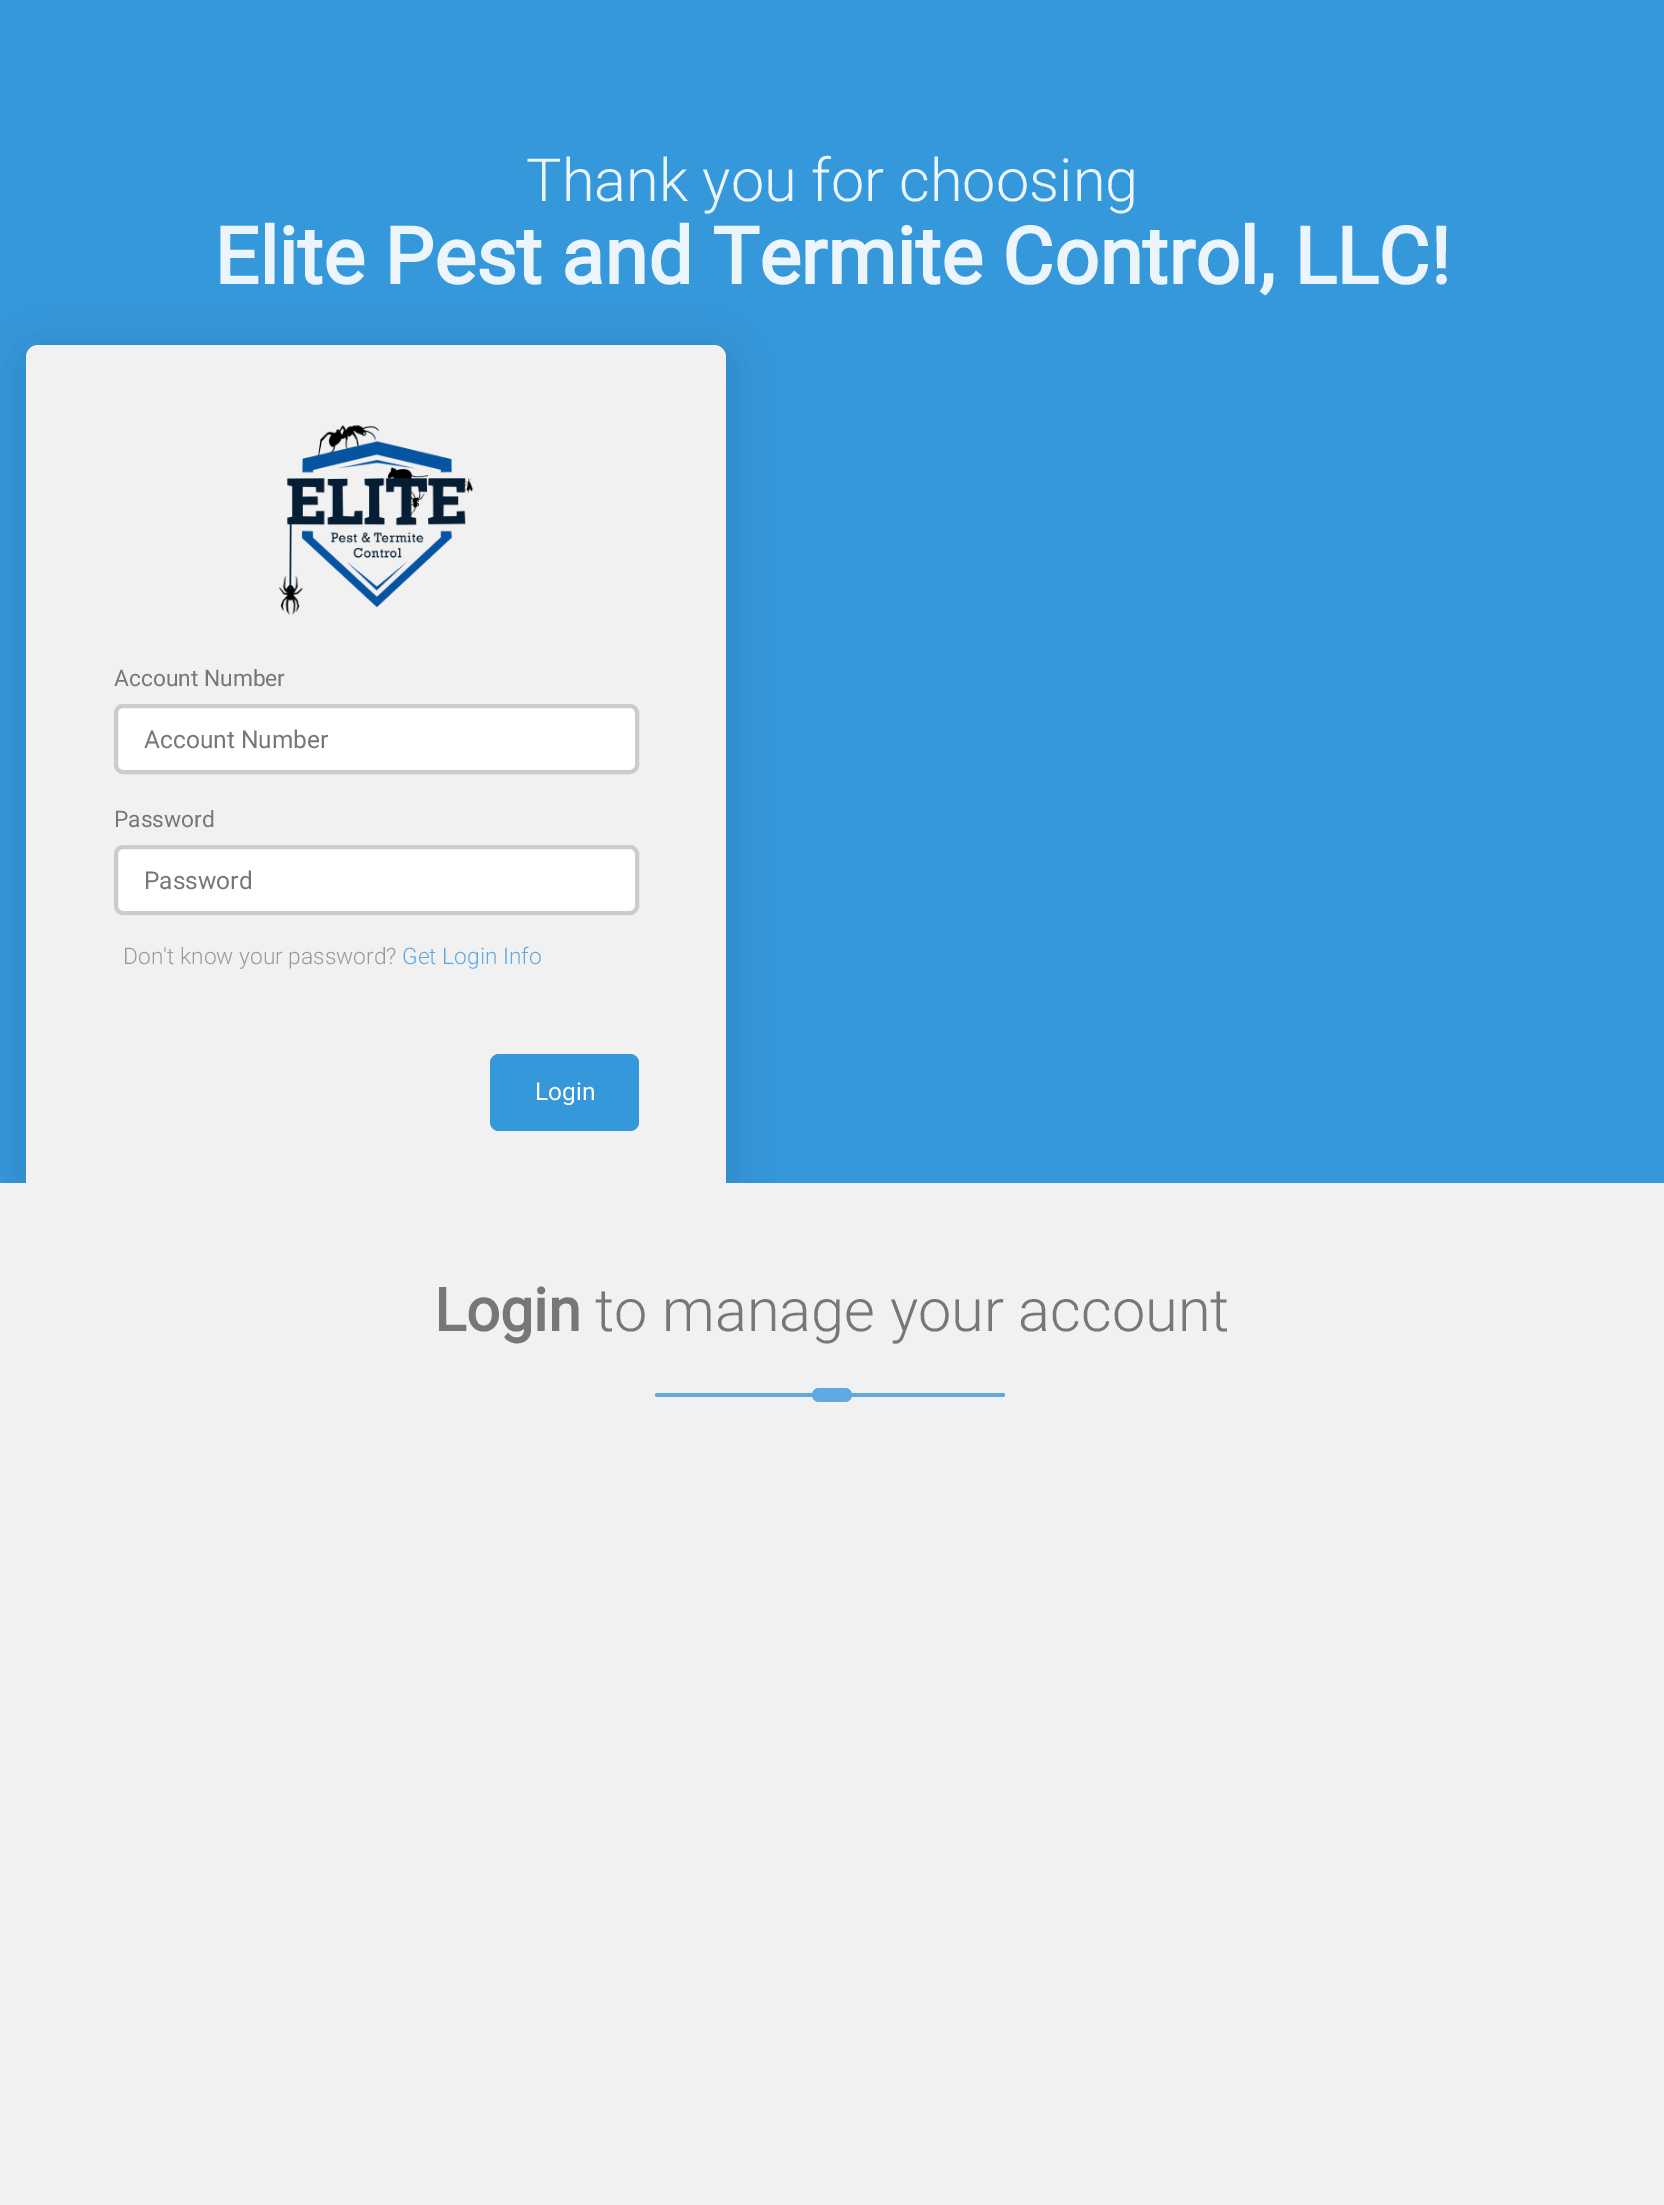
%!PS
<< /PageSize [1664 2205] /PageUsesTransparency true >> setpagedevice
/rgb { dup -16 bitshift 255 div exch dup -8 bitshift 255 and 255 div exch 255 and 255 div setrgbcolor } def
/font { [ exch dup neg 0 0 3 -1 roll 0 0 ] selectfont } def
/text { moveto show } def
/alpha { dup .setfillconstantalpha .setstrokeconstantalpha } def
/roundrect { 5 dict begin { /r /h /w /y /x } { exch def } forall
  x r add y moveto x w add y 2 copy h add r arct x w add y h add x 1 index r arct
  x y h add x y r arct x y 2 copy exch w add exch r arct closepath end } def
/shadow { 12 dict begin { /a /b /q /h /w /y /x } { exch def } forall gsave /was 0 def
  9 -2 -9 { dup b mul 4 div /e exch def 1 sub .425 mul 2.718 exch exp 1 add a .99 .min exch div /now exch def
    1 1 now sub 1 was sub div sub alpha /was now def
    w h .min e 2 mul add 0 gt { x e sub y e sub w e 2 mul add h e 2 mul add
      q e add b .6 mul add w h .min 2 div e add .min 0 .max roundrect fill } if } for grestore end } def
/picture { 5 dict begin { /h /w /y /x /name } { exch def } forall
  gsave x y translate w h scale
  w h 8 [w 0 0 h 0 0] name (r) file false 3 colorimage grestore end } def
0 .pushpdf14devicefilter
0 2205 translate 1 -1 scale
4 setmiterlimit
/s1 { /Roboto-Light 59.5 font 16#EBF5FB rgb } def
/s2 { /Roboto-Bold 78.75 font 16#EBF5FB rgb } def
/s3 { /Roboto-Regular 22.75 font 16#777777 rgb } def
/s4 { /Roboto-Regular 24.5 font 16#777777 rgb } def
/s5 { /Roboto-Light 22.75 font 16#999999 rgb } def
/s6 { /Roboto-Light 22.75 font 16#5FA9E3 rgb } def
/s7 { /Roboto-Regular 24.5 font 16#FFFFFF rgb } def
/s8 { /Roboto-Bold 59.5 font 16#777777 rgb } def
/s9 { /Roboto-Light 59.5 font 16#777777 rgb } def
16#3498DB rgb
0 0 1664 2205 rectfill
s1
(Thank you for choosing) 526 201 text
s2
(Elite Pest and Termite Control, LLC!) 214 284 text
16#000000 rgb
18 345 717 856 21 22 0.1 shadow
16#F1F1F1 rgb
38 345 moveto 714 345 lineto 720.5 345 726 350.5 726 357 curveto 726 1183 lineto 26 1183 lineto 26 357 lineto 26 350.5 31.5 345 38 345 curveto closepath fill
(pic1.raw) 279 425 195 190 picture
s3
(Account Number) 114 686 text
16#FFFFFF rgb
116 706 521 66 7 roundrect gsave fill grestore
16#CCCCCC rgb
4 setlinewidth
stroke
s4
(Account Number) 144 748 text
s3
(Password) 114 827 text
16#FFFFFF rgb
116 847 521 66 7 roundrect gsave fill grestore
16#CCCCCC rgb
stroke
s4
(Password) 144 889 text
s5
(Don't know your password?) 123 964 text
s6
(Get Login Info) 402 964 text
16#3498DB rgb
490 1054 149 77 9 roundrect fill
s7
(Login) 535 1100 text
16#F1F1F1 rgb
0 1183 1664 1022 rectfill
s8
(Login) 434 1331 text
s9
(to manage your account) 595 1331 text
16#5FA9E3 rgb
655 1393 350 4 2 roundrect fill
812 1388 40 14 7 roundrect fill
.poppdf14devicefilter showpage
